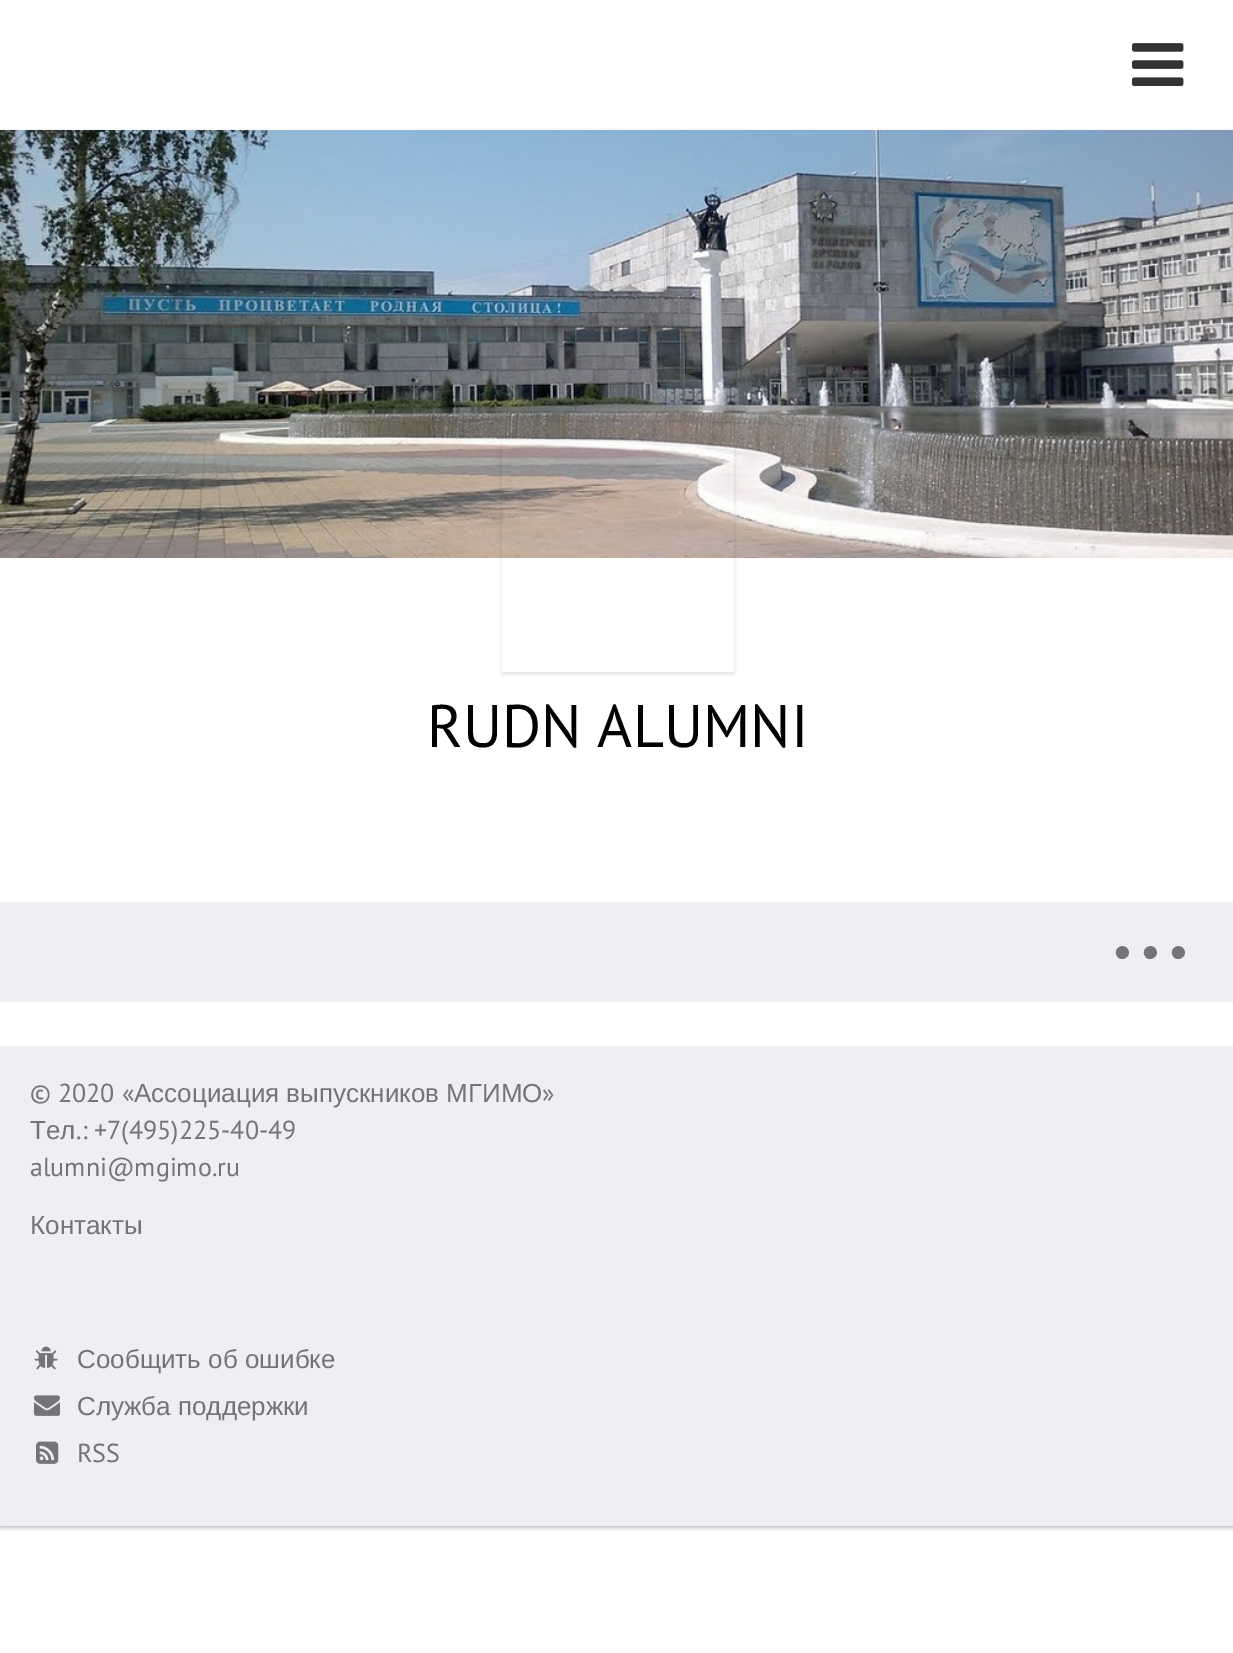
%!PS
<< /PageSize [1233 1653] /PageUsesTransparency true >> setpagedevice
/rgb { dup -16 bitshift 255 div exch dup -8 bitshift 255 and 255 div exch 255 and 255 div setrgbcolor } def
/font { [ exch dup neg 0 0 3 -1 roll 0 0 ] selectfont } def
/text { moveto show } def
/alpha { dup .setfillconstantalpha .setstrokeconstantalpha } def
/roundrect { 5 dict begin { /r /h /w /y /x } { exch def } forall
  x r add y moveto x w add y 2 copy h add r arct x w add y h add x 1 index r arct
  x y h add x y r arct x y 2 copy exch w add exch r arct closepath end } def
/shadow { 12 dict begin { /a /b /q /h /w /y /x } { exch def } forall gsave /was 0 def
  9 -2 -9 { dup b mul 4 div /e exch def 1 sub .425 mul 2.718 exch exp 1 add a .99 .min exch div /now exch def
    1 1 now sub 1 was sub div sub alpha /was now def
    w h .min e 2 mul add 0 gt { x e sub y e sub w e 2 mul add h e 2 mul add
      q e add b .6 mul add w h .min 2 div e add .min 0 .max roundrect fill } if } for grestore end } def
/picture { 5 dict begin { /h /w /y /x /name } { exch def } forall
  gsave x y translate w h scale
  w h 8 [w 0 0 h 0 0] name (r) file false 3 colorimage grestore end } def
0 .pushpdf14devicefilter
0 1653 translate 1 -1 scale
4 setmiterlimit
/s1 { /PTSans-Regular 60 font 16#000000 rgb } def
/s2 { /PTSans-Regular 26 font 16#737478 rgb } def
/s3 { /LiberationSans-Regular 26 font 16#737478 rgb } def
16#FFFFFF rgb
0 0 1233 1653 rectfill
(pic1.raw) 1132 43 52 43 picture
gsave
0 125 moveto 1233 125 lineto 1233 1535 lineto 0 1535 lineto closepath 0 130 moveto 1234 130 lineto 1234 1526 lineto 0 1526 lineto closepath eoclip newpath
16#000000 rgb
0 132 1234 1396 0 2 0.25 shadow
grestore
16#EEEFF3 rgb
0 902 1233 100 rectfill
(pic2.raw) 0 130 1233 428 picture
gsave
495 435 moveto 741 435 lineto 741 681 lineto 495 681 lineto closepath 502 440 moveto 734 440 lineto 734 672 lineto 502 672 lineto closepath eoclip newpath
16#000000 rgb
502 442 232 232 0 2 0.12 shadow
grestore
s1
(RUDN ALUMNI) 427 747 text
16#737478 rgb
1128 949.5 moveto 1132 956.5 1121 963 1117 956 curveto 1112.5 948.5 1123.5 942 1128 949.5 curveto closepath 1156 949.5 moveto 1160 956.5 1149 963 1145 956 curveto 1140.5 948.5 1151.5 942 1156 949.5 curveto closepath fill
1184 949.5 moveto 1188 956.5 1177 963 1173 956 curveto 1168.5 948.5 1179.5 942 1184 949.5 curveto closepath fill
16#EEEFF3 rgb
0 1046 1233 480 rectfill
s2
(© 2020 «) 30 1102 text
s3
(Ассоциация выпускников МГИМО) 134 1102 text
s2
(») 542 1102 text
s3
(Тел) 30 1139 text
s2
(.: +7\(495\)225-40-49) 76 1139 text
(alumni@mgimo.ru) 30 1176 text
s3
(Контакты) 30 1234 text
(pic3.raw) 34 1346 24 24 picture
(Сообщить об ошибке) 77 1368 text
(pic4.raw) 34 1395 26 21 picture
(Служба поддержки) 77 1415 text
(pic5.raw) 36 1441 23 23 picture
s2
(RSS) 77 1462 text
.poppdf14devicefilter showpage
